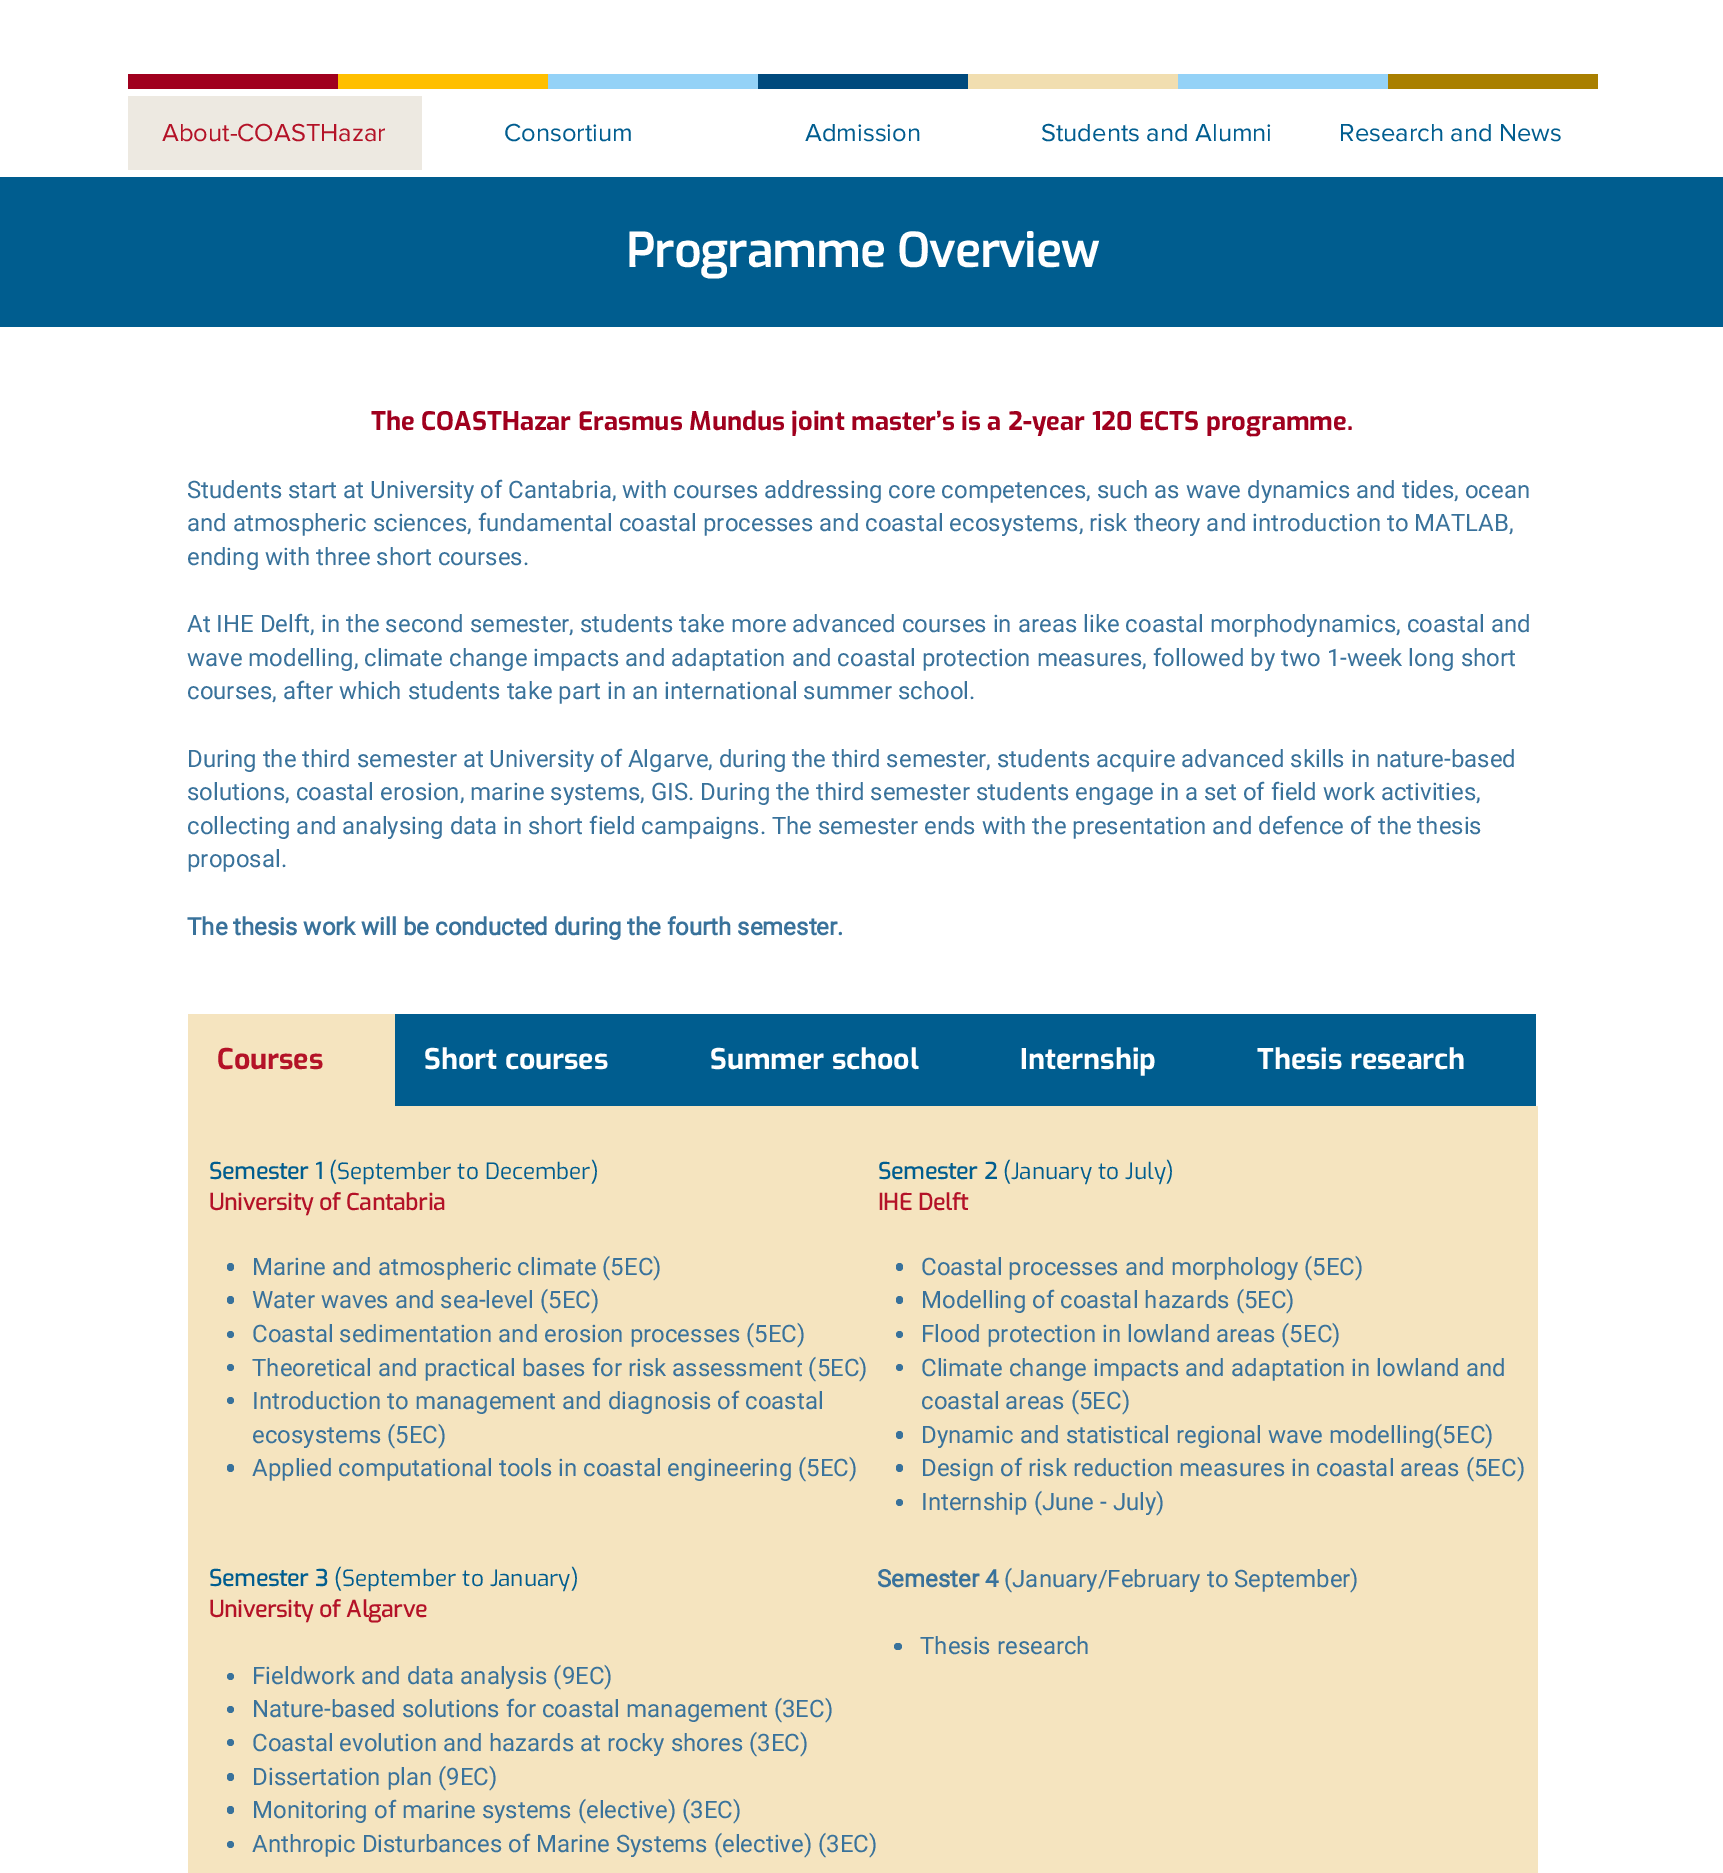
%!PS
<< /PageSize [1723 1873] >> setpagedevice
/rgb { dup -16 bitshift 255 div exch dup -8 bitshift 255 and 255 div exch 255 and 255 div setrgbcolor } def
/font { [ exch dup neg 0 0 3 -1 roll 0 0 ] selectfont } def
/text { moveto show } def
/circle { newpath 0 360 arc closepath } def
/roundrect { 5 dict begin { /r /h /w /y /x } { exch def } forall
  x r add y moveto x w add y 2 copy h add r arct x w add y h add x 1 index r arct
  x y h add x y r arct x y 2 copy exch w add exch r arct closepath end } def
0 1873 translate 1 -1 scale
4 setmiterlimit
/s1 { /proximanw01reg-Regular 25.5 font 16#B41227 rgb } def
/s2 { /proximanw01reg-Regular 25.5 font 16#005D8F rgb } def
/s3 { /Exo-Bold 46.5 font 16#FFFFFF rgb } def
/s4 { /Exo2-Bold 25.5 font 16#A0001E rgb } def
/s5 { /Roboto-Regular 24 font 16#39729B rgb } def
/s6 { /Roboto-Bold 24 font 16#39729B rgb } def
/s7 { /Exo2-Bold 28.5 font 16#B41227 rgb } def
/s8 { /Exo2-Bold 28.5 font 16#FFFFFF rgb } def
/s9 { /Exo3-Bold 22.5 font 16#005D8F rgb } def
/s10 { /Exo-Regular 22.5 font 16#005D8F rgb } def
/s11 { /Exo3-Bold 22.5 font 16#B41227 rgb } def
16#FFFFFF rgb
0 0 1723 1873 rectfill
16#A0001E rgb
128 74 210 15 rectfill
16#FFBF00 rgb
338 74 210 15 rectfill
16#94D2F7 rgb
548 74 210 15 rectfill
16#004A7D rgb
758 74 210 15 rectfill
16#F1DEB0 rgb
968 74 210 15 rectfill
16#94D2F7 rgb
1178 74 210 15 rectfill
16#A97F00 rgb
1388 74 210 15 rectfill
16#EDE9E1 rgb
128 96 294 74 rectfill
s1
(About-COASTHazar) 162 141 text
s2
(Consortium) 504 141 text
(Admission) 805 141 text
(Students and Alumni) 1041 141 text
(Research and News) 1339 141 text
0 177 1723 150 rectfill
s3
(Programme Overview) 626 267 text
s4
(The COASTHazar Erasmus Mundus joint master’s is a 2-year 120 ECTS programme.) 371 430 text
s5
(Students start at University of Cantabria, with courses addressing core competences, such as wave dynamics and tides, ocean) 187 498 text
(and atmospheric sciences, fundamental coastal processes and coastal ecosystems, risk theory and introduction to MATLAB,) 187 531 text
(ending with three short courses.) 187 565 text
(At IHE Delft, in the second semester, students take more advanced courses in areas like coastal morphodynamics, coastal and) 187 632 text
(wave modelling, climate change impacts and adaptation and coastal protection measures, followed by two 1-week long short) 187 666 text
(courses, after which students take part in an international summer school.) 187 699 text
(During the third semester at University of Algarve, during the third semester, students acquire advanced skills in nature-based) 187 767 text
(solutions, coastal erosion, marine systems, GIS. During the third semester students engage in a set of field work activities,) 187 800 text
(collecting and analysing data in short field campaigns. The semester ends with the presentation and defence of the thesis) 187 834 text
(proposal.) 187 867 text
s6
(The thesis work will be conducted during the fourth semester.) 187 935 text
16#F5E4BF rgb
188 1014 207 92 rectfill
s7
(Courses) 217 1069 text
16#005D8F rgb
395 1014 1141 92 rectfill
s8
(Short courses) 424 1069 text
(Summer school) 710 1069 text
(Internship) 1020 1069 text
(Thesis research) 1257 1069 text
16#F5E4BF rgb
188 1106 1350 767 rectfill
s9
(Semester 1) 209 1179 text
s10
(\(September to December\)) 329 1179 text
s11
(University of Cantabria) 209 1210 text
16#39729B rgb
227 1263 7 8 3.5 roundrect fill
s5
(Marine and atmospheric climate \(5EC\)) 252 1275 text
227 1296 7 8 3.5 roundrect fill
(Water waves and sea-level \(5EC\)) 252 1308 text
230.5 1334.5 3.5 circle fill
(Coastal sedimentation and erosion processes \(5EC\)) 252 1342 text
230.5 1367.5 3.5 circle fill
(Theoretical and practical bases for risk assessment \(5EC\)) 252 1376 text
230.5 1400.5 3.5 circle fill
(Introduction to management and diagnosis of coastal) 252 1409 text
(ecosystems \(5EC\)) 252 1443 text
227 1464 7 8 3.5 roundrect fill
(Applied computational tools in coastal engineering \(5EC\)) 252 1476 text
s9
(Semester 2) 878 1179 text
s10
(\(January to July\)) 1003 1179 text
s11
(IHE Delft) 878 1210 text
16#39729B rgb
896 1263 7 8 3.5 roundrect fill
s5
(Coastal processes and morphology \(5EC\)) 921 1275 text
896 1296 7 8 3.5 roundrect fill
(Modelling of coastal hazards \(5EC\)) 921 1308 text
899.5 1334.5 3.5 circle fill
(Flood protection in lowland areas \(5EC\)) 921 1342 text
899.5 1367.5 3.5 circle fill
(Climate change impacts and adaptation in lowland and) 921 1376 text
(coastal areas \(5EC\)) 921 1409 text
896 1431 7 8 3.5 roundrect fill
(Dynamic and statistical regional wave modelling\(5EC\)) 921 1443 text
896 1464 7 8 3.5 roundrect fill
(Design of risk reduction measures in coastal areas \(5EC\)) 921 1476 text
899.5 1502.5 3.5 circle fill
(Internship \(June - July\)) 921 1510 text
s9
(Semester 3) 209 1586 text
s10
(\(September to January\)) 334 1586 text
s11
(University of Algarve) 209 1617 text
16#39729B rgb
230.5 1676.5 3.5 circle fill
s5
(Fieldwork and data analysis \(9EC\)) 252 1684 text
230.5 1709.5 3.5 circle fill
(Nature-based solutions for coastal management \(3EC\)) 252 1717 text
230.5 1742.5 3.5 circle fill
(Coastal evolution and hazards at rocky shores \(3EC\)) 252 1751 text
227 1773 7 8 3.5 roundrect fill
(Dissertation plan \(9EC\)) 252 1785 text
227 1806 7 8 3.5 roundrect fill
(Monitoring of marine systems \(elective\) \(3EC\)) 252 1818 text
230.5 1844.5 3.5 circle fill
(Anthropic Disturbances of Marine Systems \(elective\) \(3EC\)) 252 1852 text
s6
(Semester 4) 877 1587 text
s5
(\(January/February to September\)) 1004 1587 text
894 1643 8 7 3.5 roundrect fill
(Thesis research) 920 1654 text
showpage
